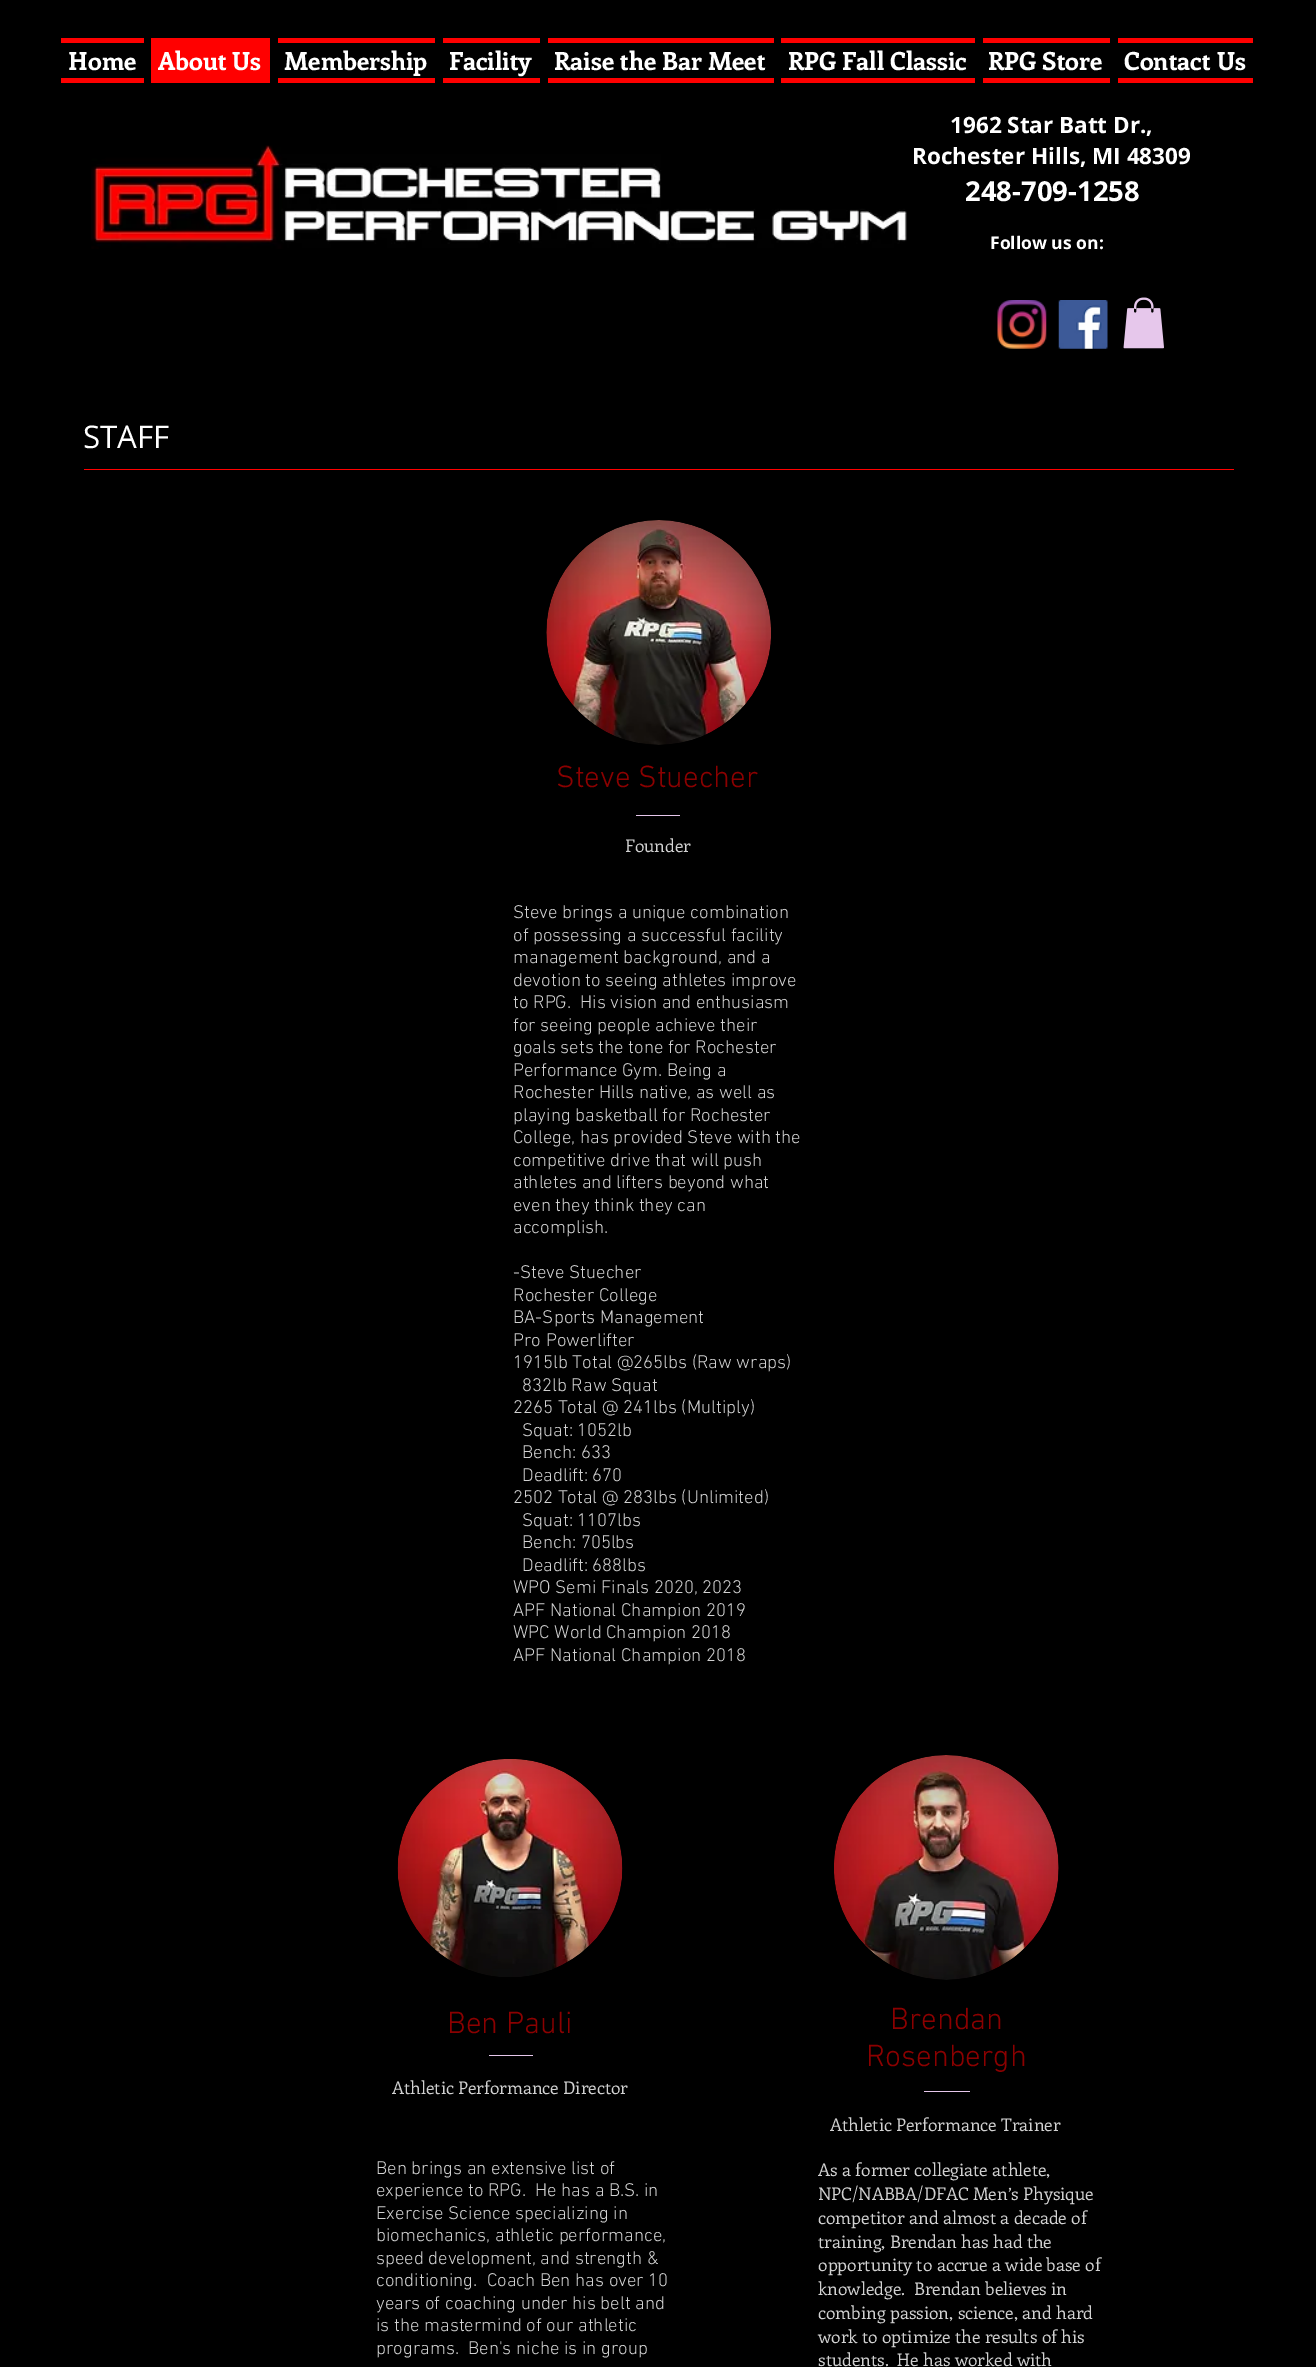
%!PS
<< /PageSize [1316 2367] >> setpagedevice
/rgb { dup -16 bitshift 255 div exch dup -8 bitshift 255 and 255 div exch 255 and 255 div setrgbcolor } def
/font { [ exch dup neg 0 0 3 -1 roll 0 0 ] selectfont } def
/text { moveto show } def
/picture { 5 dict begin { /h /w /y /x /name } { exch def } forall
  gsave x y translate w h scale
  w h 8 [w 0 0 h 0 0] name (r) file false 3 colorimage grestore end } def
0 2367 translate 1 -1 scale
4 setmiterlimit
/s1 { /Enriqueta-Bold 25 font 16#FFFFFF rgb } def
/s2 { /OpenSans-Bold 22.5 font 16#FFFFFF rgb } def
/s3 { /OpenSans-Bold 27.5 font 16#FFFFFF rgb } def
/s4 { /OpenSans-Bold 17.5 font 16#FFFFFF rgb } def
/s5 { /OpenSans-Regular 31.25 font 16#FFFFFF rgb } def
/s6 { /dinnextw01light-Light 31.25 font 16#8B0000 rgb } def
/s7 { /Enriqueta-Regular 17.5 font 16#D1D1D1 rgb } def
/s8 { /dinnextw01light-Light 18.75 font 16#D1D1D1 rgb } def
16#000000 rgb
0 0 1316 2367 rectfill
16#FF0000 rgb
61 38 83 5 rectfill
61 78 83 5 rectfill
s1
(Home) 68 70 text
16#FF0000 rgb
151 38 119 45 rectfill
s1
(About Us) 158 70 text
16#FF0000 rgb
278 38 157 5 rectfill
278 78 157 5 rectfill
s1
(Membership) 284 70 text
16#FF0000 rgb
443 38 97 5 rectfill
443 78 97 5 rectfill
s1
(Facility) 449 70 text
16#FF0000 rgb
548 38 226 5 rectfill
548 78 226 5 rectfill
s1
(Raise the Bar Meet) 554 70 text
16#FF0000 rgb
781 38 194 5 rectfill
781 78 194 5 rectfill
s1
(RPG Fall Classic) 788 70 text
16#FF0000 rgb
983 38 127 5 rectfill
983 78 127 5 rectfill
s1
(RPG Store) 988 70 text
16#FF0000 rgb
1118 38 135 5 rectfill
1118 78 135 5 rectfill
s1
(Contact Us) 1124 70 text
(pic1.raw) 91 145 816 104 picture
s2
(1962 Star Batt Dr.,) 950 133 text
(Rochester Hills, MI 48309) 912 164 text
s3
(248-709-1258) 965 201 text
s4
(Follow us on:) 990 249 text
(pic2.raw) 997 300 50 49 picture
(pic3.raw) 1058 300 50 49 picture
(pic4.raw) 1123 297 41 52 picture
s5
(STAFF) 83 448 text
16#FF0000 rgb
84 469 1150 1 rectfill
(pic5.raw) 546 520 225 225 picture
s6
(Steve Stuecher) 556 787 text
16#E6C7EB rgb
636 815 44 1 rectfill
s7
(Founder) 625 852 text
s8
(Steve brings a unique combination) 513 918 text
(of possessing a successful facility) 513 941 text
(management background, and a) 513 963 text
(devotion to seeing athletes improve) 513 986 text
(to RPG.  His vision and enthusiasm) 513 1008 text
(for seeing people achieve their) 513 1031 text
(goals sets the tone for Rochester) 513 1053 text
(Performance Gym. Being a) 513 1076 text
(Rochester Hills native, as well as) 513 1098 text
(playing basketball for Rochester) 513 1121 text
(College, has provided Steve with the) 513 1143 text
(competitive drive that will push) 513 1166 text
(athletes and lifters beyond what) 513 1188 text
(even they think they can) 513 1211 text
(accomplish.) 513 1233 text
(-Steve Stuecher) 513 1278 text
(Rochester College) 513 1301 text
(BA-Sports Management) 513 1323 text
(Pro Powerlifter) 513 1346 text
(1915lb Total @265lbs \(Raw wraps\)) 513 1368 text
(832lb Raw Squat) 522 1391 text
(2265 Total @ 241lbs \(Multiply\)) 513 1413 text
(Squat: 1052lb) 522 1436 text
(Bench: 633) 522 1458 text
(Deadlift: 670) 522 1481 text
(2502 Total @ 283lbs \(Unlimited\)) 513 1503 text
(Squat: 1107lbs) 522 1526 text
(Bench: 705lbs) 522 1548 text
(Deadlift: 688lbs) 522 1571 text
(WPO Semi Finals 2020, 2023) 513 1593 text
(APF National Champion 2019) 513 1616 text
(WPC World Champion 2018) 513 1638 text
(APF National Champion 2018) 513 1661 text
(pic6.raw) 397 1759 226 218 picture
(pic7.raw) 834 1755 225 225 picture
s6
(Ben Pauli) 447 2033 text
16#E6C7EB rgb
489 2055 44 1 rectfill
s7
(Athletic Performance Director) 392 2094 text
s6
(Brendan) 890 2029 text
(Rosenbergh) 866 2066 text
16#E6C7EB rgb
924 2091 46 1 rectfill
s7
(Athletic Performance Trainer) 830 2131 text
s8
(Ben brings an extensive list of) 376 2174 text
(experience to RPG.  He has a B.S. in) 376 2196 text
(Exercise Science specializing in) 376 2219 text
(biomechanics, athletic performance,) 376 2241 text
(speed development, and strength &) 376 2264 text
(conditioning.  Coach Ben has over 10) 376 2286 text
(years of coaching under his belt and) 376 2309 text
(is the mastermind of our athletic) 376 2331 text
(programs.  Ben's niche is in group) 376 2354 text
s7
(As a former collegiate athlete,) 818 2176 text
(NPC/NABBA/DFAC Men’s Physique) 818 2200 text
(competitor and almost a decade of) 818 2224 text
(training, Brendan has had the) 818 2248 text
(opportunity to accrue a wide base of) 818 2271 text
(knowledge.  Brendan believes in) 818 2295 text
(combing passion, science, and hard) 818 2319 text
(work to optimize the results of his) 818 2343 text
(students.  He has worked with) 818 2366 text
showpage
